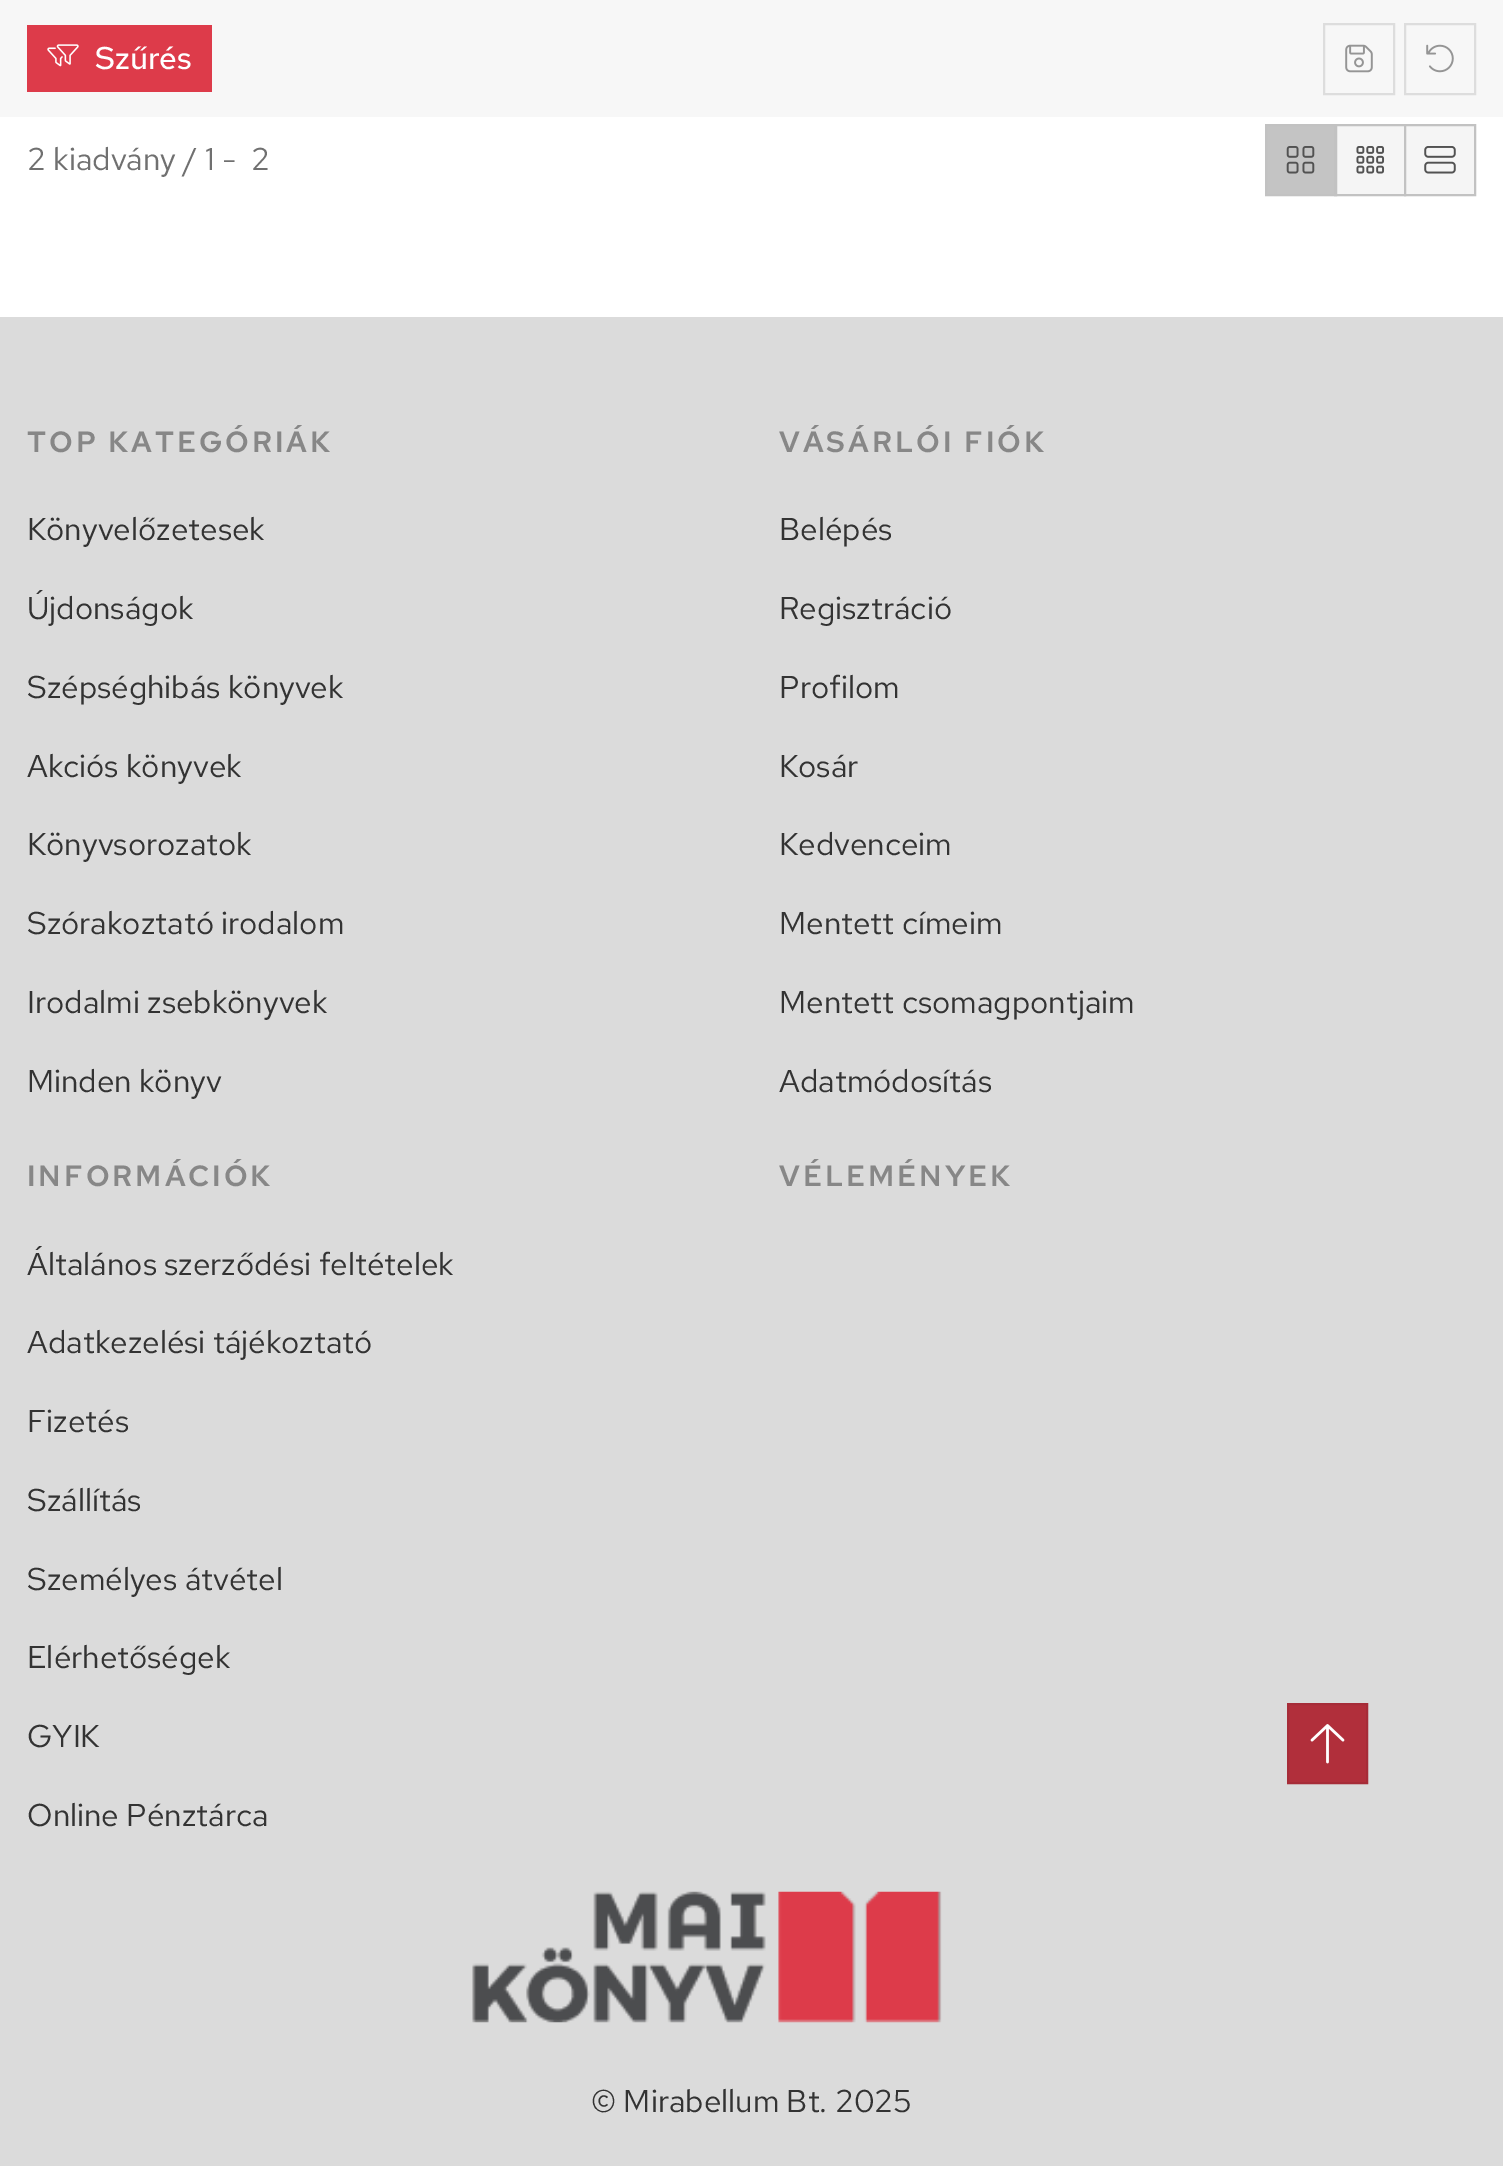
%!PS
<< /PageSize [1503 2166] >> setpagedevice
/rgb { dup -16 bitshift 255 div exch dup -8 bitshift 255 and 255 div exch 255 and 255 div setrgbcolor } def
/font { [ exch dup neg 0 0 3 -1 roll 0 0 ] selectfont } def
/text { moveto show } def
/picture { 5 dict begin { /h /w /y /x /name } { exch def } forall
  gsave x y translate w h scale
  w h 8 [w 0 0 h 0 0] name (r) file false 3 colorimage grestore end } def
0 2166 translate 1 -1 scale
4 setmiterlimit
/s1 { /RedHatText-Medium 31.5 font 16#FFFFFF rgb } def
/s2 { /RedHatText-Regular 31.5 font 16#707070 rgb } def
/s3 { /RedHatText-Regular 31.5 font 16#333333 rgb } def
16#FFFFFF rgb
0 0 1503 2166 rectfill
16#F7F7F7 rgb
0 0 1503 117 rectfill
16#DD3B4A rgb
27 25 185 67 rectfill
(pic1.raw) 47 44 32 23 picture
s1
(Szűrés) 95 69 text
16#DDDDDD rgb
2 setlinewidth
1324 24 70 70 rectstroke
(pic2.raw) 1345 44 28 29 picture
1405 24 70 70 rectstroke
(pic3.raw) 1426 44 28 29 picture
s2
(2 kiadvány / 1 -) 27 170 text
(2) 251 170 text
16#C4C4C4 rgb
1267 126 67 68 rectfill
16#F5F5F5 rgb
1337 126 67 68 rectfill
16#C2C2C2 rgb
1335 125 70 70 rectstroke
1266 125 70 70 rectstroke
(pic4.raw) 1286 146 29 28 picture
(pic5.raw) 1356 146 29 28 picture
16#F5F5F5 rgb
1405 125 moveto 1475 125 lineto 1475 195 lineto 1405 195 lineto closepath gsave fill grestore
16#C2C2C2 rgb
stroke
(pic6.raw) 1424 146 32 28 picture
16#DBDBDB rgb
0 317 1503 1849 rectfill
/RedHatText-SemiBold 29.25 font
16#878787 rgb
27 452 moveto 3 0 (TOP KATEGÓRIÁK) ashow
s3
(Könyvelőzetesek) 27 540 text
(Újdonságok) 27 619 text
(Szépséghibás könyvek) 27 698 text
(Akciós könyvek) 27 777 text
(Könyvsorozatok) 27 855 text
(Szórakoztató irodalom) 27 934 text
(Irodalmi zsebkönyvek) 27 1013 text
(Minden könyv) 27 1092 text
/RedHatText-SemiBold 29.25 font
16#878787 rgb
779 452 moveto 3 0 (VÁSÁRLÓI FIÓK) ashow
s3
(Belépés) 779 540 text
(Regisztráció) 779 619 text
(Profilom) 779 698 text
(Kosár) 779 777 text
(Kedvenceim) 779 855 text
(Mentett címeim) 779 934 text
(Mentett csomagpontjaim) 779 1013 text
(Adatmódosítás) 779 1092 text
/RedHatText-SemiBold 29.25 font
16#878787 rgb
27 1186 moveto 3 0 (INFORMÁCIÓK) ashow
s3
(Általános szerződési feltételek) 27 1275 text
(Adatkezelési tájékoztató) 27 1353 text
(Fizetés) 27 1432 text
(Szállítás) 27 1511 text
(Személyes átvétel) 27 1590 text
(Elérhetőségek) 27 1668 text
(GYIK) 27 1747 text
(Online Pénztárca) 27 1826 text
/RedHatText-SemiBold 29.25 font
16#878787 rgb
779 1186 moveto 3 0 (VÉLEMÉNYEK) ashow
(pic7.raw) 472 1891 470 132 picture
s3
(© Mirabellum Bt. 2025) 591 2112 text
16#B12F3B rgb
1288 1704 moveto 1367 1704 lineto 1367 1783 lineto 1288 1783 lineto closepath gsave fill grestore
16#A62C38 rgb
stroke
(pic8.raw) 1310 1724 35 40 picture
showpage
